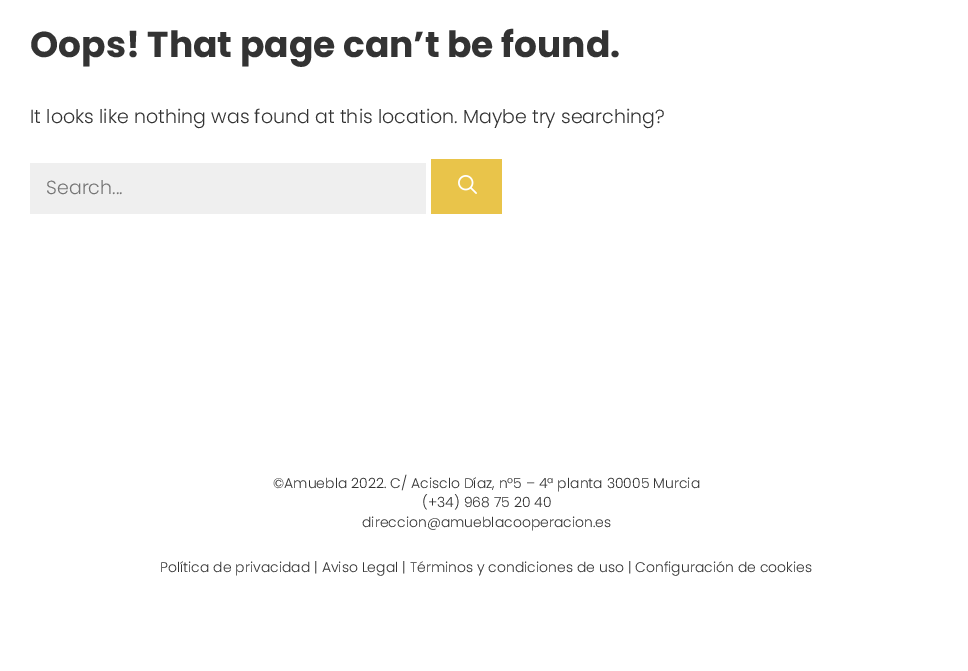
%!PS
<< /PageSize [968 671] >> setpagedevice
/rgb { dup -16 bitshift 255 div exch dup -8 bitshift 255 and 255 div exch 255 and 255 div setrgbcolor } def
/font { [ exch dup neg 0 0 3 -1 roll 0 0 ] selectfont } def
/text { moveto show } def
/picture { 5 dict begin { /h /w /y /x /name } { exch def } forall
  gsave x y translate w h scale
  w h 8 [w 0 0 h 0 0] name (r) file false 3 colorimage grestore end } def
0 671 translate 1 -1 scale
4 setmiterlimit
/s1 { /Poppins-Bold 36 font 16#333333 rgb } def
/s2 { /Poppins-Light 19 font 16#333333 rgb } def
/s3 { /Poppins-Light 19 font 16#757575 rgb } def
/s4 { /Poppins-Light 14 font 16#333333 rgb } def
16#FFFFFF rgb
0 0 968 671 rectfill
s1
(Oops! That page can’t be found.) 30 57 text
s2
(It looks like nothing was found at this location. Maybe try searching?) 30 123 text
16#EFEFEF rgb
30 163 396 51 rectfill
s3
(Search...) 46 194 text
16#E9C44A rgb
431 159 71 55 rectfill
(pic1.raw) 458 175 19 19 picture
s4
(©Amuebla 2022. C/ Acisclo Díaz, nº5 – 4ª planta 30005 Murcia) 273 488 text
(\(+34\) 968 75 20 40) 422 507 text
(direccion@amueblacooperacion.es) 362 527 text
(Política de privacidad | Aviso Legal | Términos y condiciones de uso | Configuración de cookies) 160 572 text
showpage
